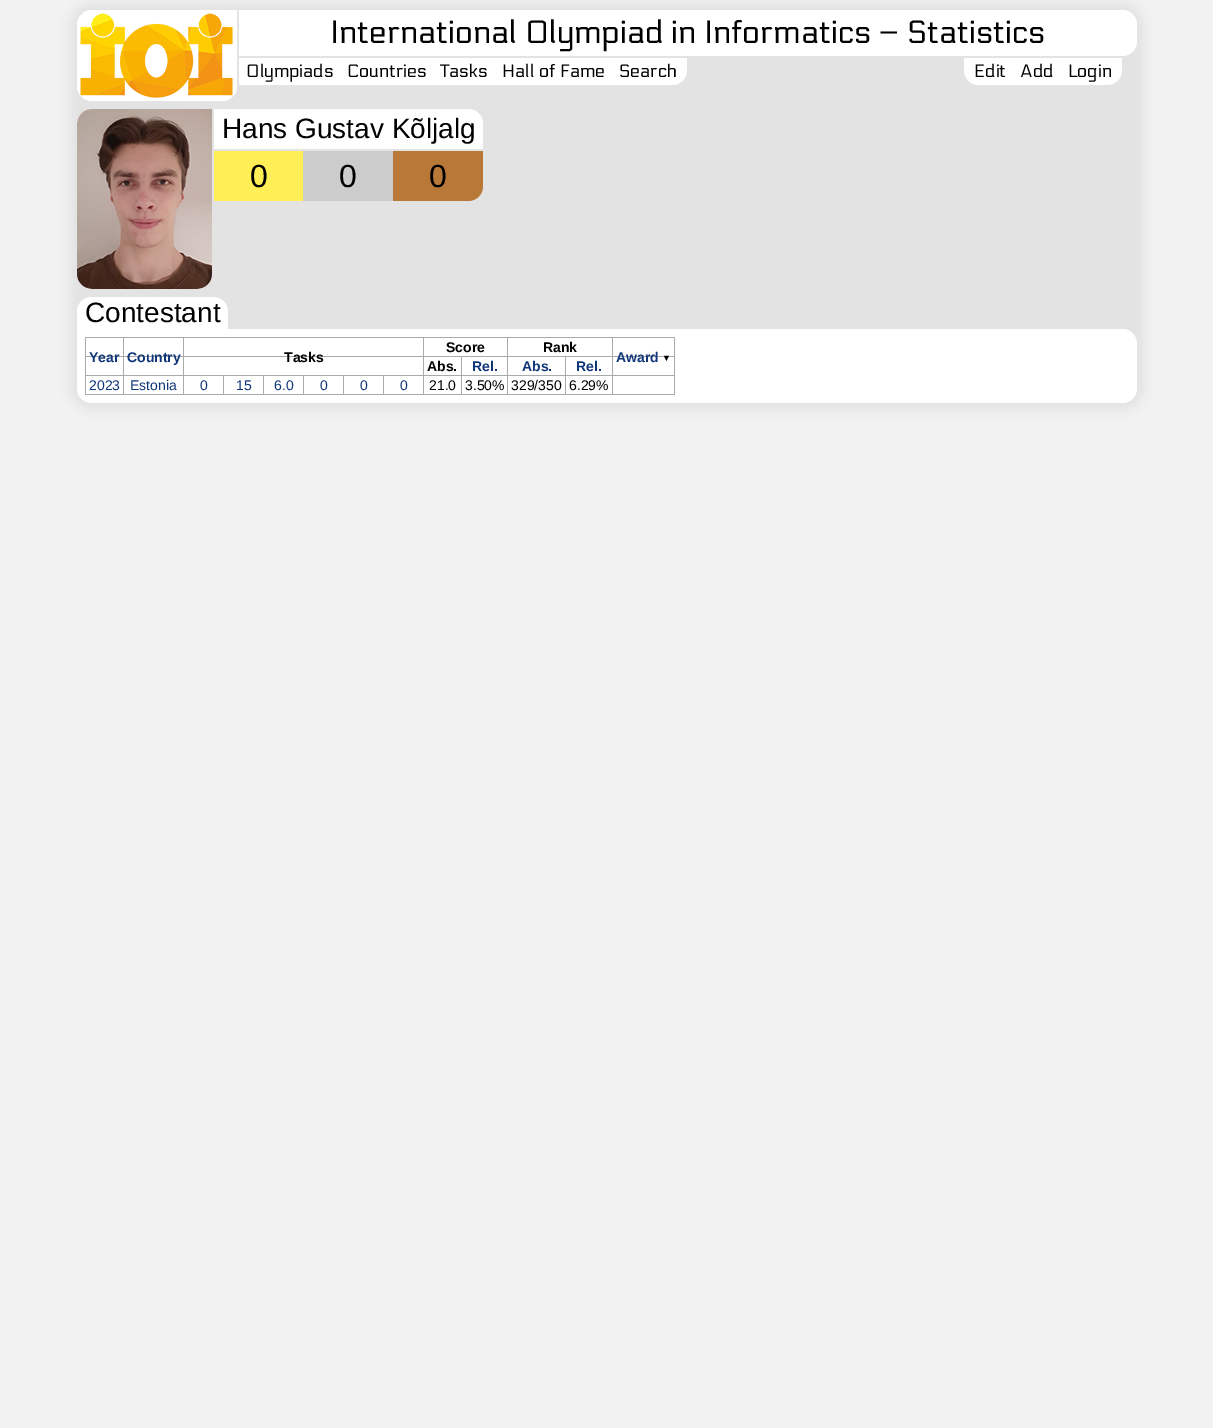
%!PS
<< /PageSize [1213 1428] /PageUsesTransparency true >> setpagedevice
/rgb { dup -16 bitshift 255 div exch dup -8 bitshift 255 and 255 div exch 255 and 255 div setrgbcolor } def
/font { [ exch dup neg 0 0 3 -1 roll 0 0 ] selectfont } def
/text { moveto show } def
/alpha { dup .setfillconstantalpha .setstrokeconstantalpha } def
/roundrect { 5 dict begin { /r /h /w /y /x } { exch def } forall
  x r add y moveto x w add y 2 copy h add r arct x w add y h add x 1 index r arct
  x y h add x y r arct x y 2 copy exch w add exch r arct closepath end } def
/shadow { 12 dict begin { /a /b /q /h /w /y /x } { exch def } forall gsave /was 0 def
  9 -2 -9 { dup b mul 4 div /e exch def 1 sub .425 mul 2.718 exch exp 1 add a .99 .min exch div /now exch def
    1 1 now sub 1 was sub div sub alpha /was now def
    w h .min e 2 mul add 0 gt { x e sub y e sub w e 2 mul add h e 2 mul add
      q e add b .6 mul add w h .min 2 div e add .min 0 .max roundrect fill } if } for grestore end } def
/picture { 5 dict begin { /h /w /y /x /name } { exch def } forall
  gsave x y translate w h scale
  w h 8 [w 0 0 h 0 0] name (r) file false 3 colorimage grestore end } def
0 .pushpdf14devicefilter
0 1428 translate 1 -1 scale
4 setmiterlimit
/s1 { /Electrolize-Regular 32 font 16#000000 rgb } def
/s2 { /Electrolize-Regular 18 font 16#000000 rgb } def
/s3 { /LiberationSans-Regular 28 font 16#000000 rgb } def
/s4 { /LiberationSans-Regular 32 font 16#000000 rgb } def
/s5 { /LiberationSans-Bold 14 font 16#000000 rgb } def
/s6 { /LiberationSans-Bold 14 font 16#0F3678 rgb } def
/s7 { /LiberationSans-Bold 9 font 16#000000 rgb } def
/s8 { /LiberationSans-Regular 14 font 16#0F3678 rgb } def
/s9 { /LiberationSans-Regular 14 font 16#000000 rgb } def
16#F2F2F2 rgb
0 0 1213 1428 rectfill
16#E2E2E2 rgb
70 3 1074 407 22 5 1 shadow
16#FFFFFF rgb
92 10 moveto 237 10 lineto 237 86 lineto 237 94.5 230.5 101 222 101 curveto 92 101 lineto 83.5 101 77 94.5 77 86 curveto 77 25 lineto 77 16.5 83.5 10 92 10 curveto closepath fill
(pic1.raw) 80 13 153 85 picture
239 10 moveto 1122 10 lineto 1130.5 10 1137 16.5 1137 25 curveto 1137 41 lineto 1137 49.5 1130.5 56 1122 56 curveto 239 56 lineto closepath fill
s1
(International Olympiad in Informatics – Statistics) 330 43 text
16#FFFFFF rgb
239 58 373 27 rectfill
s2
(Olympiads) 246 77 text
(Countries) 347 77 text
(Tasks) 440 77 text
(Hall of Fame) 502 77 text
16#FFFFFF rgb
612 58 moveto 687 58 lineto 687 70 lineto 687 78.5 680.5 85 672 85 curveto 612 85 lineto closepath fill
s2
(Search) 619 77 text
16#FFFFFF rgb
964 58 moveto 1013 58 lineto 1013 85 lineto 979 85 lineto 970.5 85 964 78.5 964 70 curveto closepath fill
s2
(Edit) 974 77 text
16#FFFFFF rgb
1013 58 48 27 rectfill
s2
(Add) 1020 77 text
16#FFFFFF rgb
1061 58 moveto 1122 58 lineto 1122 70 lineto 1122 78.5 1115.5 85 1107 85 curveto 1061 85 lineto closepath fill
s2
(Login) 1068 77 text
16#FFFFFF rgb
92 109 moveto 212 109 lineto 212 274 lineto 212 282.5 205.5 289 197 289 curveto 92 289 lineto 83.5 289 77 282.5 77 274 curveto 77 124 lineto 77 115.5 83.5 109 92 109 curveto closepath fill
(pic2.raw) 77 109 135 180 picture
214 109 moveto 468 109 lineto 476.5 109 483 115.5 483 124 curveto 483 149 lineto 214 149 lineto closepath fill
s3
(Hans Gustav Kõljalg) 222 138 text
16#FFEE55 rgb
214 151 89 50 rectfill
s4
(0) 250 187 text
16#CCCCCC rgb
303 151 90 50 rectfill
s4
(0) 339 187 text
16#B87838 rgb
393 151 moveto 483 151 lineto 483 186 lineto 483 194.5 476.5 201 468 201 curveto 393 201 lineto closepath fill
s4
(0) 429 187 text
16#FFFFFF rgb
92 297 moveto 213 297 lineto 221.5 297 228 303.5 228 312 curveto 228 329 lineto 77 329 lineto 77 312 lineto 77 303.5 83.5 297 92 297 curveto closepath fill
s3
(Contestant) 85 322 text
16#FFFFFF rgb
77 329 moveto 1122 329 lineto 1130.5 329 1137 335.5 1137 344 curveto 1137 388 lineto 1137 396.5 1130.5 403 1122 403 curveto 92 403 lineto 83.5 403 77 396.5 77 388 curveto closepath fill
16#AAAAAA rgb
85 337 590 1 rectfill
674 337 1 58 rectfill
85 394 590 1 rectfill
85 337 1 58 rectfill
s5
(Score) 446 352 text
(Rank) 543 352 text
16#AAAAAA rgb
85 356 590 1 rectfill
s6
(Year) 89 362 text
(Country) 127 362 text
s5
(Tasks) 284 362 text
s6
(Award) 616 362 text
s7
(▼) 662 361 text
s5
(Abs.) 427 371 text
s6
(Rel.) 472 371 text
(Abs.) 522 371 text
(Rel.) 576 371 text
16#AAAAAA rgb
85 375 590 1 rectfill
s8
(2023) 89 390 text
16#AAAAAA rgb
123 337 1 58 rectfill
s8
(Estonia) 130 390 text
16#AAAAAA rgb
183 337 1 58 rectfill
s8
(0) 200 390 text
16#AAAAAA rgb
223 375 1 20 rectfill
s8
(15) 236 390 text
16#AAAAAA rgb
263 375 1 20 rectfill
s8
(6.0) 274 390 text
16#AAAAAA rgb
303 375 1 20 rectfill
s8
(0) 320 390 text
16#AAAAAA rgb
343 375 1 20 rectfill
s8
(0) 360 390 text
16#AAAAAA rgb
383 375 1 20 rectfill
s8
(0) 400 390 text
16#AAAAAA rgb
423 337 1 58 rectfill
s9
(21.0) 429 390 text
16#AAAAAA rgb
461 356 1 39 rectfill
s9
(3.50%) 465 390 text
16#AAAAAA rgb
507 337 1 58 rectfill
s9
(329/350) 511 390 text
16#AAAAAA rgb
565 356 1 39 rectfill
s9
(6.29%) 569 390 text
16#AAAAAA rgb
612 337 1 58 rectfill
.poppdf14devicefilter showpage
